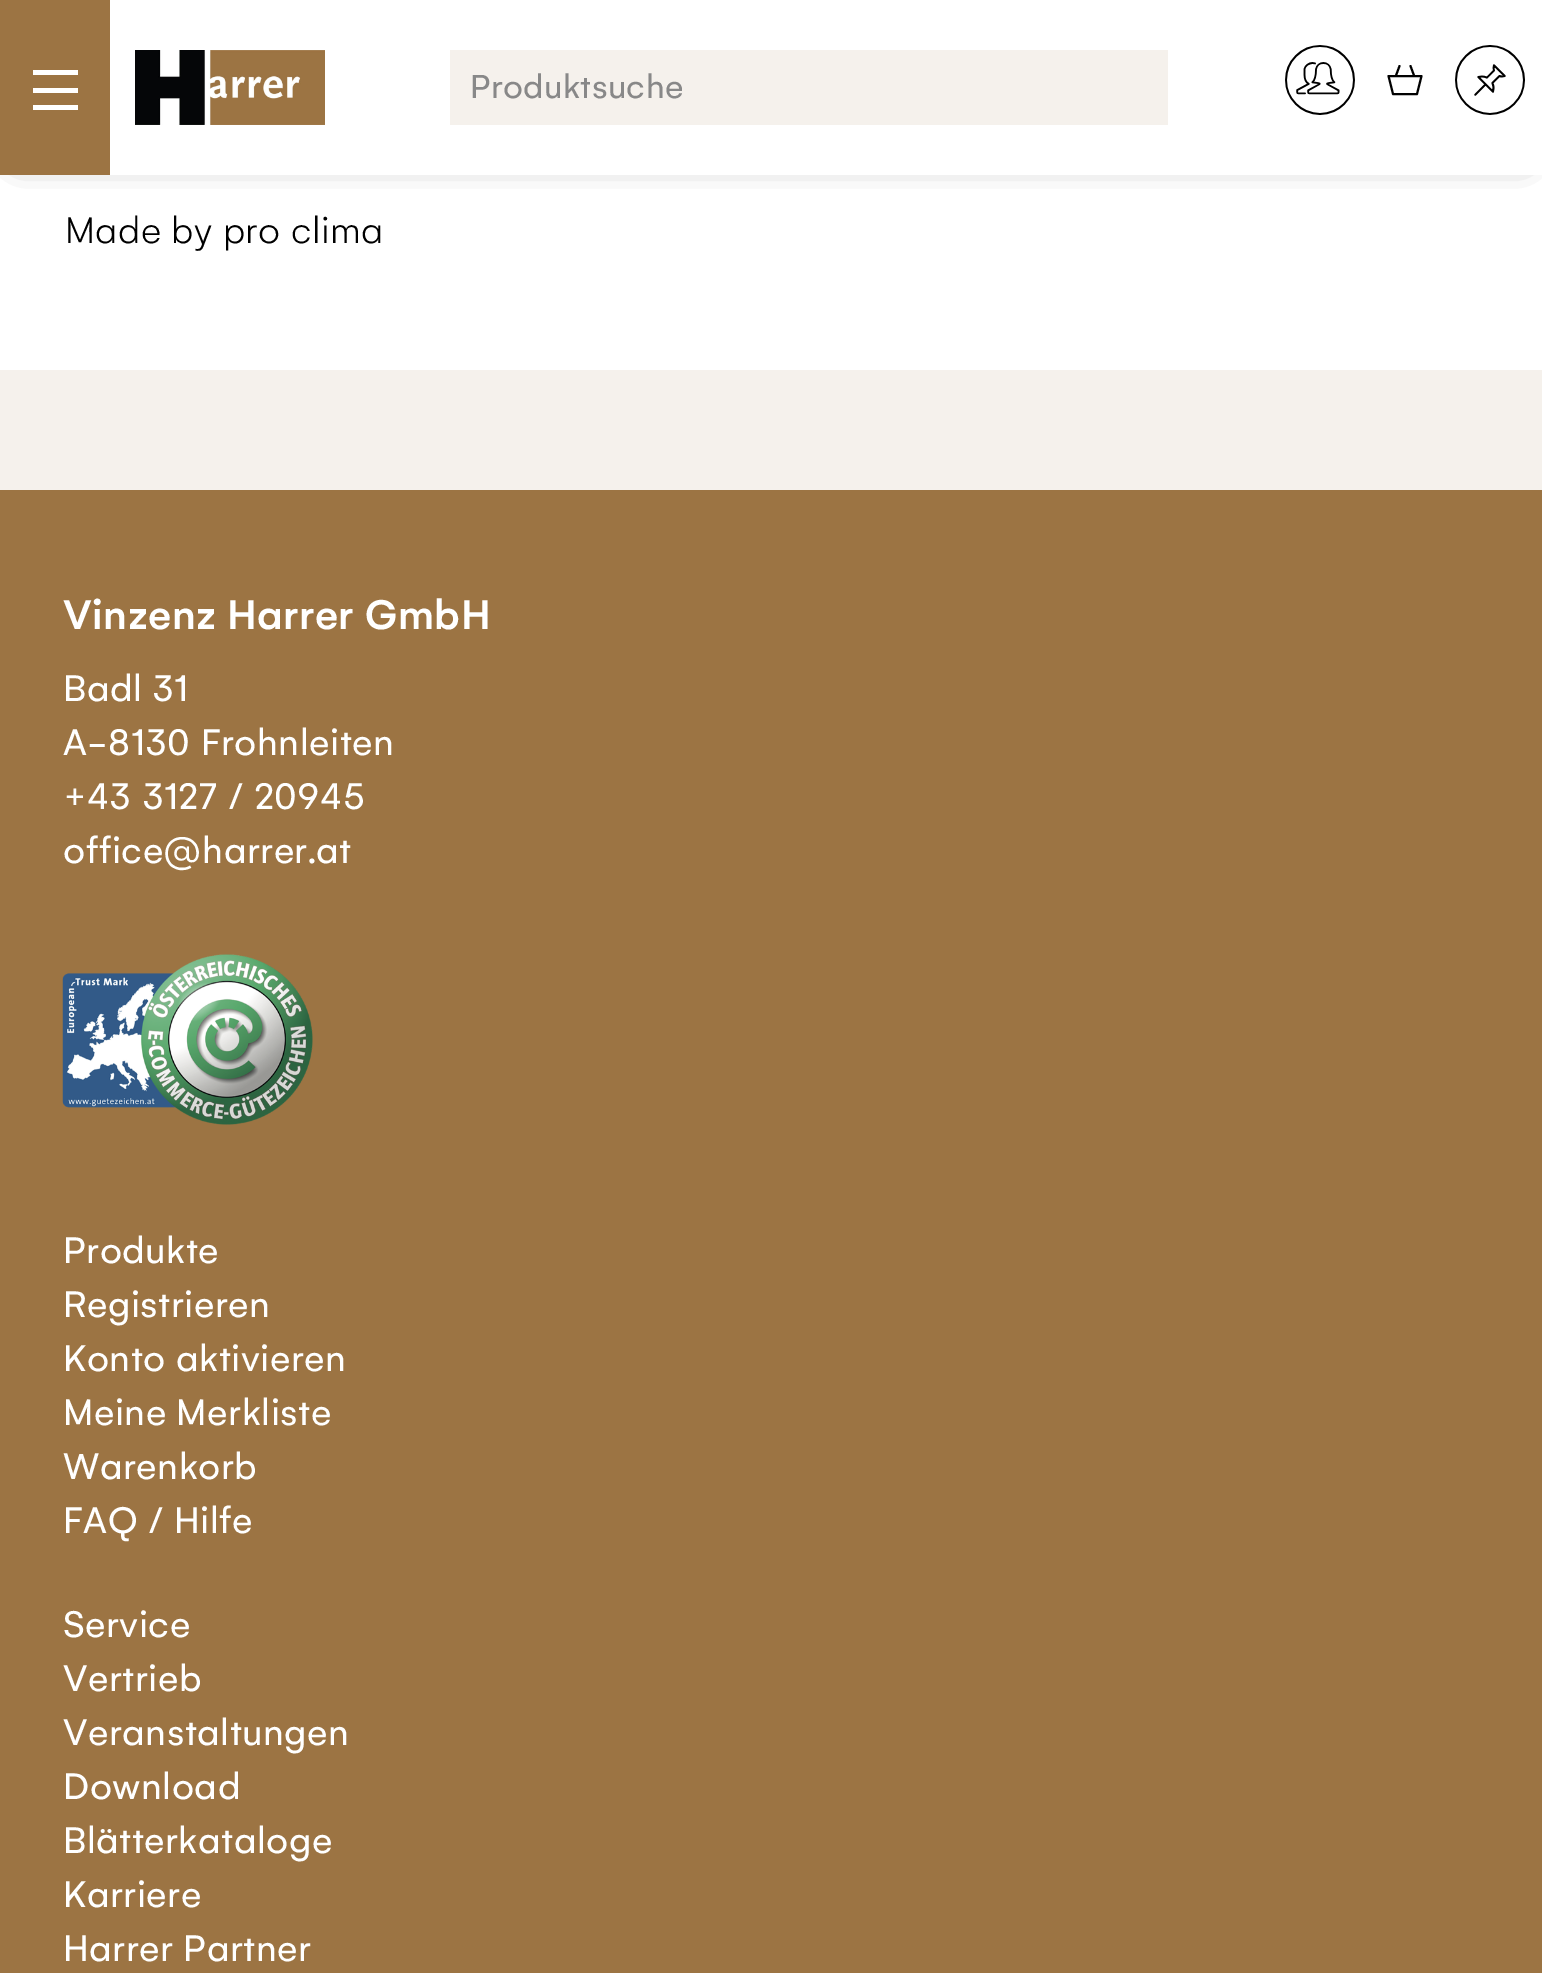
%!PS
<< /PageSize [1542 1973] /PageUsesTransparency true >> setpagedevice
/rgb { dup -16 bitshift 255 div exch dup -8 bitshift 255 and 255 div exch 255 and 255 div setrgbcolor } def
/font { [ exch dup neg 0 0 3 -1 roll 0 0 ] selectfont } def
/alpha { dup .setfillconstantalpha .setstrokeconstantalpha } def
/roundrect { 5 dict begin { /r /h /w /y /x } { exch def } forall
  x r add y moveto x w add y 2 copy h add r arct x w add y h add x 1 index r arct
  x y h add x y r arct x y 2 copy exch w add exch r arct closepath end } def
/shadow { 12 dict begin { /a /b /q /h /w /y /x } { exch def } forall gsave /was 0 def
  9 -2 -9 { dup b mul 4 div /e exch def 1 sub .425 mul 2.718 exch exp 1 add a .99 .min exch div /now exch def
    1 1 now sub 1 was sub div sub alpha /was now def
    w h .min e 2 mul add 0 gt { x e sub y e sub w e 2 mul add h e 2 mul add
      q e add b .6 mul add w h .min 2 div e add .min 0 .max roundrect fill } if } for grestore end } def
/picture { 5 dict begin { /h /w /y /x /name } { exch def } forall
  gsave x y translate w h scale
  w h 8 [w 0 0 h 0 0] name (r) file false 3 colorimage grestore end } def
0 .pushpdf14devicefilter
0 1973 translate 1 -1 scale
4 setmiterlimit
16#F5F1EC rgb
0 0 1542 1973 rectfill
16#FFFFFF rgb
0 175 1542 195 rectfill
16#333333 rgb
20 20 1503 135 0 15 1 shadow
16#FFFFFF rgb
110 0 1432 175 rectfill
16#9C7443 rgb
0 0 110 175 rectfill
16#FFFFFF rgb
33 70 45 5 rectfill
33 88 45 5 rectfill
33 105 45 5 rectfill
(pic1.raw) 135 50 190 75 picture
16#F5F1EC rgb
450 50 718 75 rectfill
/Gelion-Regular 36 font
16#888888 rgb
470 98 moveto 0.4 0 (Produktsuche) ashow
(pic2.raw) 1285 45 70 70 picture
16#010101 rgb
2 setlinewidth
1 setlinecap
1 setlinejoin
1417 94 moveto 1393 94 lineto 1388.5 76 lineto 1421.5 76 lineto closepath 1414 75.5 moveto 1410.5 66 lineto 1396 75.5 moveto 1399.5 66 lineto stroke
(pic3.raw) 1455 45 70 70 picture
/Gelion-Light 40 font
16#000000 rgb
65 243 moveto 0.5 0 (Made by pro clima) ashow
16#9C7443 rgb
0 490 1542 1483 rectfill
/Gelion-Medium 44.75 font
16#FFFFFF rgb
63 629 moveto 0.5 0 (Vinzenz Harrer GmbH) ashow
/Gelion-Regular 40 font
63 701 moveto 0.5 0 (Badl 31) ashow
63 755 moveto 0.5 0 (A-8130 Frohnleiten) ashow
63 809 moveto 0.5 0 (+43 3127 / 20945) ashow
63 863 moveto 0.5 0 (office@harrer.at) ashow
(pic4.raw) 62 954 251 171 picture
63 1263 moveto 0.5 0 (Produkte) ashow
63 1317 moveto 0.5 0 (Registrieren) ashow
63 1371 moveto 0.5 0 (Konto aktivieren) ashow
63 1425 moveto 0.5 0 (Meine Merkliste) ashow
63 1479 moveto 0.5 0 (Warenkorb) ashow
63 1533 moveto 0.5 0 (FAQ / Hilfe) ashow
63 1637 moveto 0.5 0 (Service) ashow
63 1691 moveto 0.5 0 (Vertrieb) ashow
63 1745 moveto 0.5 0 (Veranstaltungen) ashow
63 1799 moveto 0.5 0 (Download) ashow
63 1853 moveto 0.5 0 (Blätterkataloge) ashow
63 1907 moveto 0.5 0 (Karriere) ashow
63 1961 moveto 0.5 0 (Harrer Partner) ashow
.poppdf14devicefilter showpage
